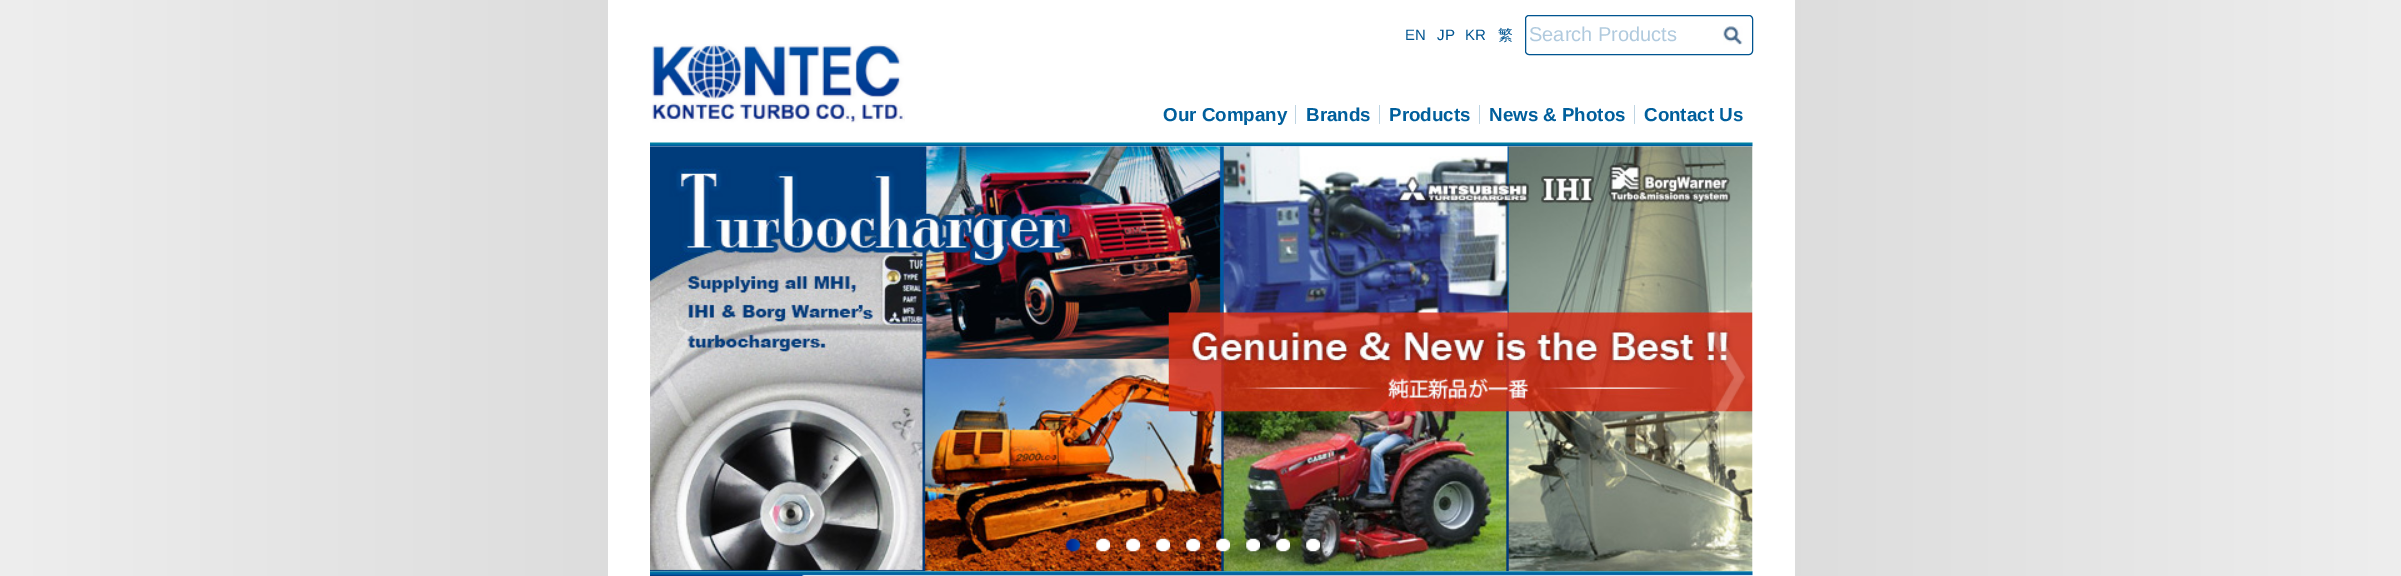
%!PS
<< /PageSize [2401 576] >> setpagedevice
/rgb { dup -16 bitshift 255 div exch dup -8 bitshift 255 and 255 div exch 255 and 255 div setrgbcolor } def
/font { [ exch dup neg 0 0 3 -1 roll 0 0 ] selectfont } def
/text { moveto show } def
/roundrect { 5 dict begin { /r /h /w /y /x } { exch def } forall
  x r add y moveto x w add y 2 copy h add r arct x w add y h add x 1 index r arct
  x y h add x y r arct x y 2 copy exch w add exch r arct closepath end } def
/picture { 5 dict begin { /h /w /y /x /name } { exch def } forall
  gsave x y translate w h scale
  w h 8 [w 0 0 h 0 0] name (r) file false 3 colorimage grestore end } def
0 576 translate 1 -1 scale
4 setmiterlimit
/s1 { /LiberationSans-Regular 15 font 16#005490 rgb } def
/s2 { /WenQuanYiZenHei-Medium 15 font 16#005490 rgb } def
/s3 { /LiberationSans-Regular 20 font 16#B0CADE rgb } def
/s4 { /LiberationSans-Bold 18.75 font 16#005F9C rgb } def
16#FFFFFF rgb
0 0 2401 576 rectfill
gsave 0 0 moveto 2401 0 lineto 2401 576 lineto 0 576 lineto closepath clip newpath
<< /ShadingType 2 /ColorSpace /DeviceRGB /Coords [0 288 2401 288] /Extend [true true] /Function << /FunctionType 3 /Domain [0 1] /Functions [<< /FunctionType 2 /Domain [0 1] /C0 [0.933 0.933 0.933] /C1 [0.8 0.8 0.8] /N 1 >> << /FunctionType 2 /Domain [0 1] /C0 [0.8 0.8 0.8] /C1 [0.933 0.933 0.933] /N 1 >>] /Bounds [0.5] /Encode [0 1 0 1] >> >> shfill grestore
608 0 1187 576 rectfill
(pic1.raw) 650 571 1103 5 picture
(pic14.raw) 650 142 1103 5 picture
(pic2.raw) 650 146 1103 426 picture
(pic3.raw) 657 331 37 96 picture
(pic4.raw) 1708 331 38 96 picture
(pic5.raw) 1066 538 14 14 picture
(pic6.raw) 1096 538 14 14 picture
(pic7.raw) 1126 538 14 14 picture
(pic8.raw) 1156 538 14 14 picture
(pic9.raw) 1186 538 14 14 picture
(pic10.raw) 1216 538 14 14 picture
(pic11.raw) 1246 538 14 14 picture
(pic12.raw) 1276 538 14 14 picture
(pic13.raw) 1306 538 14 14 picture
s1
(EN) 1405 40 text
(JP) 1437 40 text
(KR) 1465 40 text
s2
(繁) 1498 40 text
1525.5 15.5 227 39 3.5 roundrect stroke
s3
(Search Products) 1529 41 text
(pic15.raw) 1723 26 20 19 picture
(pic16.raw) 652 44 253 79 picture
16#BED4E2 rgb
1295 105 1 19 rectfill
s4
(Our Company) 1163 121 text
16#BED4E2 rgb
1379 105 1 19 rectfill
s4
(Brands) 1306 121 text
16#BED4E2 rgb
1479 105 1 19 rectfill
s4
(Products) 1389 121 text
16#BED4E2 rgb
1634 105 1 19 rectfill
s4
(News & Photos) 1489 121 text
(Contact Us) 1644 121 text
showpage
